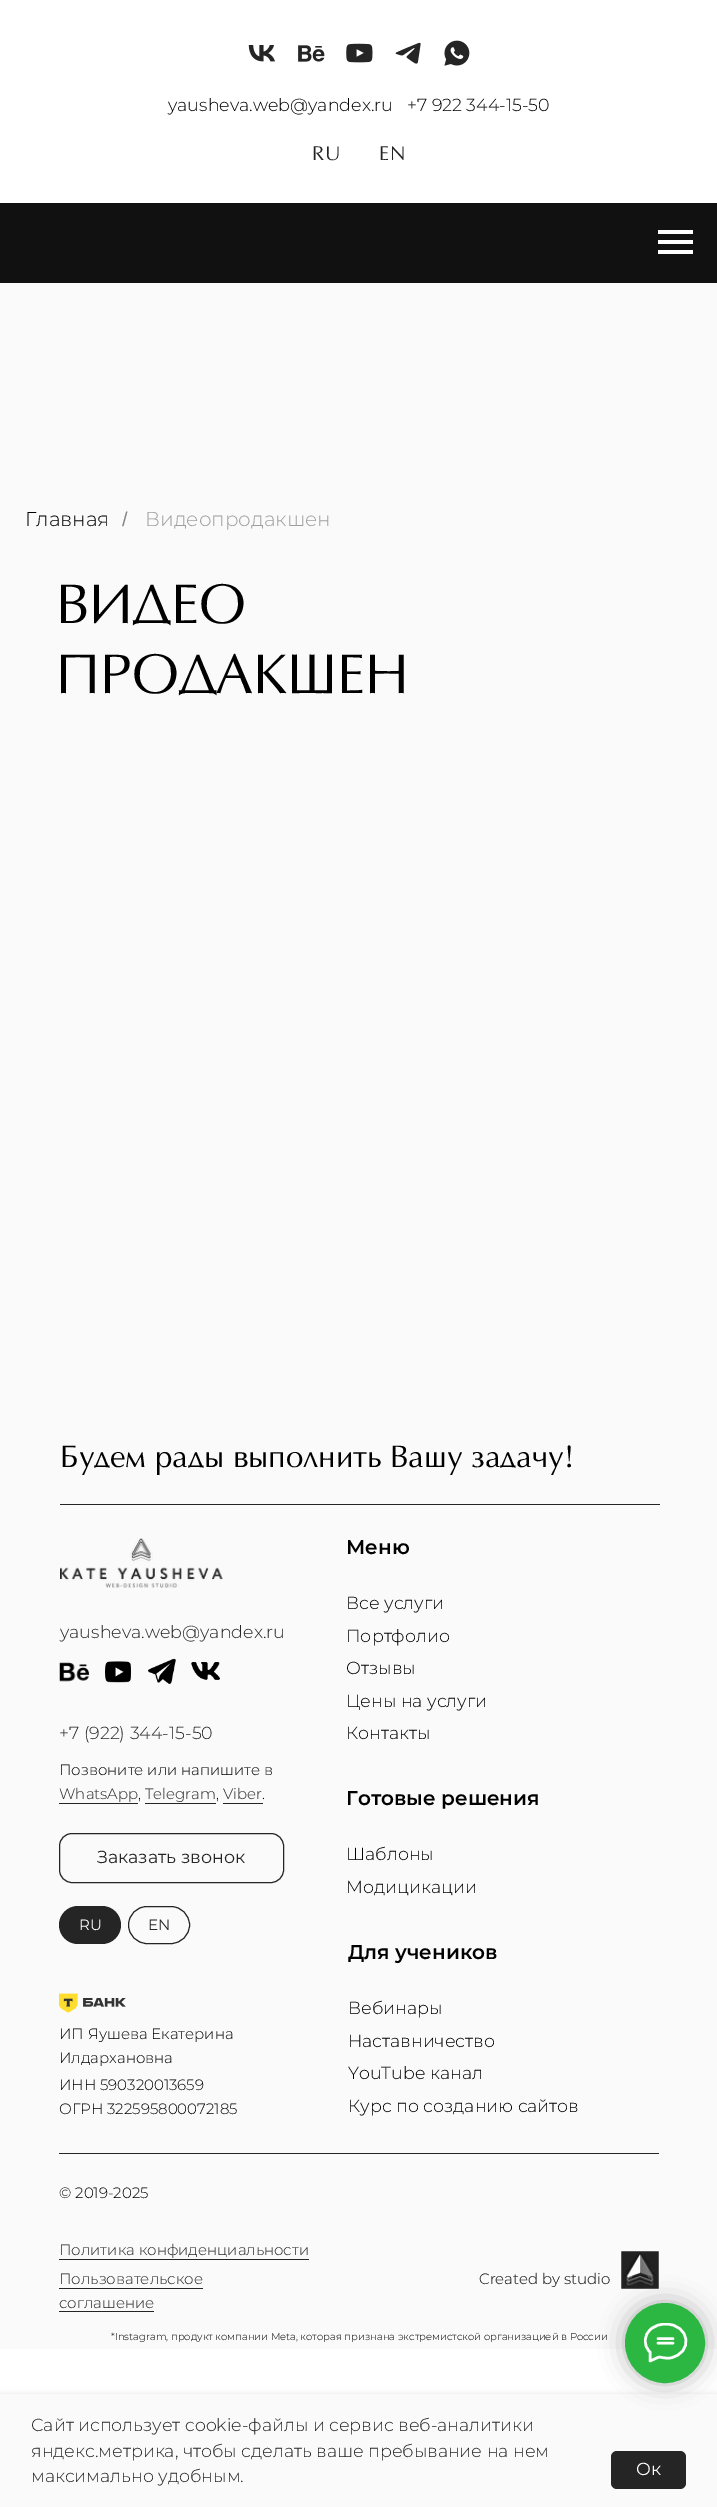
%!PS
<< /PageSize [717 2507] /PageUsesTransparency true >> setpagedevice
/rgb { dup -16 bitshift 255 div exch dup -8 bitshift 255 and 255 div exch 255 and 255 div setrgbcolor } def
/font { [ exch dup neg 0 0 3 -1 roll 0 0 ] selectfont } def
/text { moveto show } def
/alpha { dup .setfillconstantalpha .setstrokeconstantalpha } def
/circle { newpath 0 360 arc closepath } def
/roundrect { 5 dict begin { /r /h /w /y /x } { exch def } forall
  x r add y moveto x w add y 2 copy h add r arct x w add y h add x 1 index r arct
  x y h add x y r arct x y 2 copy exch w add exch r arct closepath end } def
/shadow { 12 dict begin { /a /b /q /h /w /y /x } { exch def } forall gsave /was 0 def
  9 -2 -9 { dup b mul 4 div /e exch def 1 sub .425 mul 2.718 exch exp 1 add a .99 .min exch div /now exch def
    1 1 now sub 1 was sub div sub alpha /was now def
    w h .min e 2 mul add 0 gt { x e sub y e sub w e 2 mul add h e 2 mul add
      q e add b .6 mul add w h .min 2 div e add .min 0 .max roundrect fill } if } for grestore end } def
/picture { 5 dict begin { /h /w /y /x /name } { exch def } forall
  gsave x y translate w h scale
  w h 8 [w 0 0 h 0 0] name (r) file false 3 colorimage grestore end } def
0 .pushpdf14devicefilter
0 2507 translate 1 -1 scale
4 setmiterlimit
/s1 { /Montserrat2-Light 17.5 font 16#000000 rgb } def
/s2 { /Montserrat2-Light 17.5 font 16#252525 rgb } def
/s3 { /Montserrat-Regular 17.5 font 16#FFFFFF rgb } def
/s4 { /Montserrat-Light 20 font 16#000000 rgb } def
/s5 { /LiberationSans-Regular 20 font 16#858585 rgb } def
/s6 { /Montserrat-Light 20 font 16#9E9E9E rgb } def
/s7 { /Optima-Regular 56.25 font 16#000000 rgb } def
/s8 { /Optima-Regular 31.25 font 16#000000 rgb } def
/s9 { /Montserrat-SemiBold 20 font 16#000000 rgb } def
/s10 { /Montserrat2-Light 15 font 16#000000 rgb } def
/s11 { /Montserrat2-Light 15 font 16#252525 rgb } def
/s12 { /Montserrat-Regular 17.5 font 16#252525 rgb } def
/s13 { /Montserrat-Regular 15 font 16#FFFFFF rgb } def
/s14 { /Montserrat-Regular 15 font 16#252525 rgb } def
/s15 { /Montserrat2-Light 10 font 16#000000 rgb } def
16#FFFFFF rgb
0 0 717 2507 rectfill
(pic1.raw) 248 45 27 17 picture
(pic2.raw) 298 45 27 17 picture
(pic3.raw) 346 43 27 20 picture
(pic4.raw) 395 42 26 22 picture
(pic5.raw) 444 40 26 26 picture
s1
(yausheva.web@yandex.ru) 168 111 text
(+7 922 344-15-50) 407 111 text
/Optima-Regular 20 font
16#252525 rgb
312 160 moveto 1 0 (RU) ashow
379 160 moveto 1 0 (EN) ashow
16#111111 rgb
0 203 717 80 rectfill
16#FFFFFF rgb
658 230 35 4 rectfill
658 240 35 4 rectfill
658 250 35 4 rectfill
16#000000 rgb
0 2394 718 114 0 3 0.1 shadow
16#FAFAFA rgb
0 2394 717 113 rectfill
s2
(Сайт использует cookie-файлы и сервис веб-аналитики) 31 2431 text
(яндекс.метрика, чтобы сделать ваше пребывание на нем) 31 2457 text
(максимально удобным.) 31 2482 text
611 2451 75 38 6 roundrect fill
s3
(Ок) 636 2475 text
16#FAFAFA rgb
0 283 717 2066 rectfill
s4
(Главная) 25 526 text
s5
(/) 122 526 text
s6
(Видеопродакшен) 145 526 text
s7
(ВИДЕО) 56 623 text
(ПРОДАКШЕН) 56 693 text
s8
(Будем рады выполнить Вашу задачу!) 60 1467 text
16#252525 rgb
60 1504 600 1 rectfill
(pic6.raw) 60 1538 163 50 picture
s9
(Меню) 346 1554 text
s1
(Все услуги) 346 1609 text
s2
(yausheva.web@yandex.ru) 60 1638 text
s1
(Портфолио) 346 1642 text
(pic7.raw) 59 1662 31 20 picture
(pic8.raw) 105 1661 26 22 picture
(pic9.raw) 148 1658 28 26 picture
(pic10.raw) 191 1662 29 18 picture
(Отзывы) 346 1674 text
(Цены на услуги) 346 1707 text
s2
(+7 \(922\) 344-15-50) 59 1739 text
s1
(Контакты) 346 1739 text
s10
(Позвоните или напишите в) 59 1775 text
s11
(WhatsApp) 59 1799 text
59 1803 79 1 rectfill
s10
(,) 138 1799 text
s11
(Telegram) 145 1799 text
145 1803 71 1 rectfill
s10
(,) 216 1799 text
s11
(Viber) 223 1799 text
223 1803 40 1 rectfill
s10
(.) 262 1799 text
s9
(Готовые решения) 346 1805 text
16#252525 rgb
59.5 1833.5 224 49 12.5 roundrect stroke
s12
(Заказать звонок) 97 1863 text
s1
(Шаблоны) 346 1860 text
(Модицикации) 346 1893 text
16#252525 rgb
59 1906 62 38 19 roundrect fill
s13
(RU) 79 1930 text
16#252525 rgb
128.5 1906.5 61 37 18.5 roundrect stroke
(EN) 148 1930 text
s9
(Для учеников) 348 1959 text
(pic11.raw) 59 1993 67 20 picture
s1
(Вебинары) 348 2014 text
s10
(ИП Яушева Екатерина) 59 2039 text
(Илдархановна) 59 2063 text
s1
(Наставничество) 348 2047 text
(YouTube канал) 348 2079 text
s10
(ИНН 590320013659) 59 2090 text
(ОГРН 322595800072185) 59 2114 text
s1
(Курс по созданию сайтов) 348 2112 text
16#252525 rgb
59 2153 600 1 rectfill
s10
(© 2019-2025) 59 2198 text
s11
(Политика конфиденциальности) 59 2255 text
59 2259 250 1 rectfill
s10
(Created by studio) 479 2284 text
(pic12.raw) 621 2251 38 38 picture
s11
(Пользовательское) 59 2284 text
59 2288 144 1 rectfill
(соглашение) 59 2308 text
59 2311 95 1 rectfill
s15
(*Instagram, продукт компании Meta, которая признана экстремистской организацией в России) 111 2340 text
625 2303 80 80 40 12.5 0.3 shadow
16#2CB742 rgb
665 2343 38.5 circle gsave fill grestore
3 setlinewidth
stroke
gsave
644 2323 44 40 rectclip
16#FFFFFF rgb
2.5 setlinewidth
1 setlinecap
1 setlinejoin
658 2338.5 moveto 673 2338.5 lineto 658 2343 moveto 673 2343 lineto 650 2352 moveto 643 2345.5 643.5 2335 651 2329 curveto 655 2325.5 660.5 2324 665.5 2324 curveto 690 2324 694 2353.5 670 2358 curveto 665.5 2358.5 662.5 2357.5 659 2357 curveto 650 2361 lineto closepath stroke
grestore
.poppdf14devicefilter showpage
